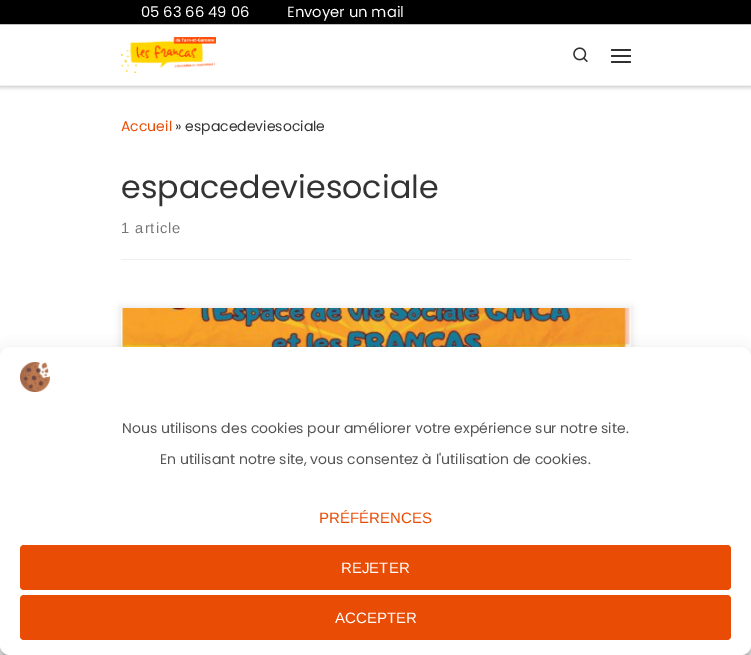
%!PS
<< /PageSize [751 655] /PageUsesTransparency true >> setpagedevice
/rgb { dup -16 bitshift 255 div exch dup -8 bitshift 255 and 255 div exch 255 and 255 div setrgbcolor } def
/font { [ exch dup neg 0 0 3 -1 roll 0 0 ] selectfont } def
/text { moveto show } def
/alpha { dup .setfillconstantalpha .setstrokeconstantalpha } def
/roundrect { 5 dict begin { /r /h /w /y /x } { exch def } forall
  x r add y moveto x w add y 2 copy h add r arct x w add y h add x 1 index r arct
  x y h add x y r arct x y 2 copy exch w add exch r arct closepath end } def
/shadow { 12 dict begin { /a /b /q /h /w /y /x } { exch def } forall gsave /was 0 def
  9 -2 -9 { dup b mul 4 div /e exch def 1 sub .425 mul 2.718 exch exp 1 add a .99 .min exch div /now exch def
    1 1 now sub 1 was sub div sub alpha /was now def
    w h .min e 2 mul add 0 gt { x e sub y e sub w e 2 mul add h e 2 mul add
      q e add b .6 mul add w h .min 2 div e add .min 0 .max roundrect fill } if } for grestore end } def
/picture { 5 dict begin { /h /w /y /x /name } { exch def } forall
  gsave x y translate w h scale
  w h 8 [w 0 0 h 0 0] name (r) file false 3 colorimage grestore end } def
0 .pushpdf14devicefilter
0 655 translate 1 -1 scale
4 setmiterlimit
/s1 { /Poppins-Regular 14.75 font 16#FFFFFF rgb } def
/s2 { /Poppins-Regular 14 font 16#E84C05 rgb } def
/s3 { /Poppins-Regular 14 font 16#333333 rgb } def
/s4 { /Poppins-Regular 31.75 font 16#333333 rgb } def
/s5 { /Poppins-Regular 14 font 16#555555 rgb } def
/s6 { /LiberationSans-Regular 15 font 16#E84C05 rgb } def
/s7 { /LiberationSans-Regular 15 font 16#FFFFFF rgb } def
16#FFFFFF rgb
0 0 751 655 rectfill
16#000000 rgb
0 0 751 24 rectfill
s1
(05 63 66 49 06) 141 17 text
(Envoyer un mail) 287 17 text
gsave
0 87 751 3 rectclip
16#666666 rgb
0 26 751 63 0 1 0.08 shadow
grestore
16#D3D3D3 rgb
0 24 751 1 rectfill
16#EFEFEF rgb
0 86 751 1 rectfill
gsave
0 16 moveto 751 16 lineto 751 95 lineto 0 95 lineto closepath 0 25 moveto 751 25 lineto 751 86 lineto 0 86 lineto closepath eoclip newpath
16#000000 rgb
0 25 751 61 0 2.5 0.2 shadow
grestore
(pic1.raw) 121 37 95 36 picture
(pic2.raw) 573 47 15 16 picture
16#313131 rgb
611 49 20 2 1 roundrect fill
611 55 20 2 1 roundrect fill
611 61 20 2 1 roundrect fill
16#F0F0F0 rgb
0 85 751 1 rectfill
s2
(Accueil) 121 131 text
s3
(» espacedeviesociale) 175 131 text
s4
(espacedeviesociale) 121 198 text
/LiberationSans-Regular 14.75 font
16#777777 rgb
121 233 moveto 1 0 (1 article) ashow
16#ECEEEF rgb
121 259 510 1 rectfill
16#000000 rgb
119 306 514 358 0 3 0.07 shadow
(pic3.raw) 121 308 510 39 picture
0 353 751 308 10 3 0.23 shadow
0 357 751 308 10 10 0.19 shadow
16#FFFFFF rgb
0 347 751 308 10 roundrect fill
(pic4.raw) 20 362 30 30 picture
s5
(Nous utilisons des cookies pour améliorer votre expérience sur notre site.) 122 433 text
(En utilisant notre site, vous consentez à l'utilisation de cookies.) 160 464 text
s6
(PRÉFÉRENCES) 319 523 text
20 545 711 45 4 roundrect fill
s7
(REJETER) 341 573 text
16#E84C05 rgb
20 595 711 45 4 roundrect fill
s7
(ACCEPTER) 335 623 text
.poppdf14devicefilter showpage
